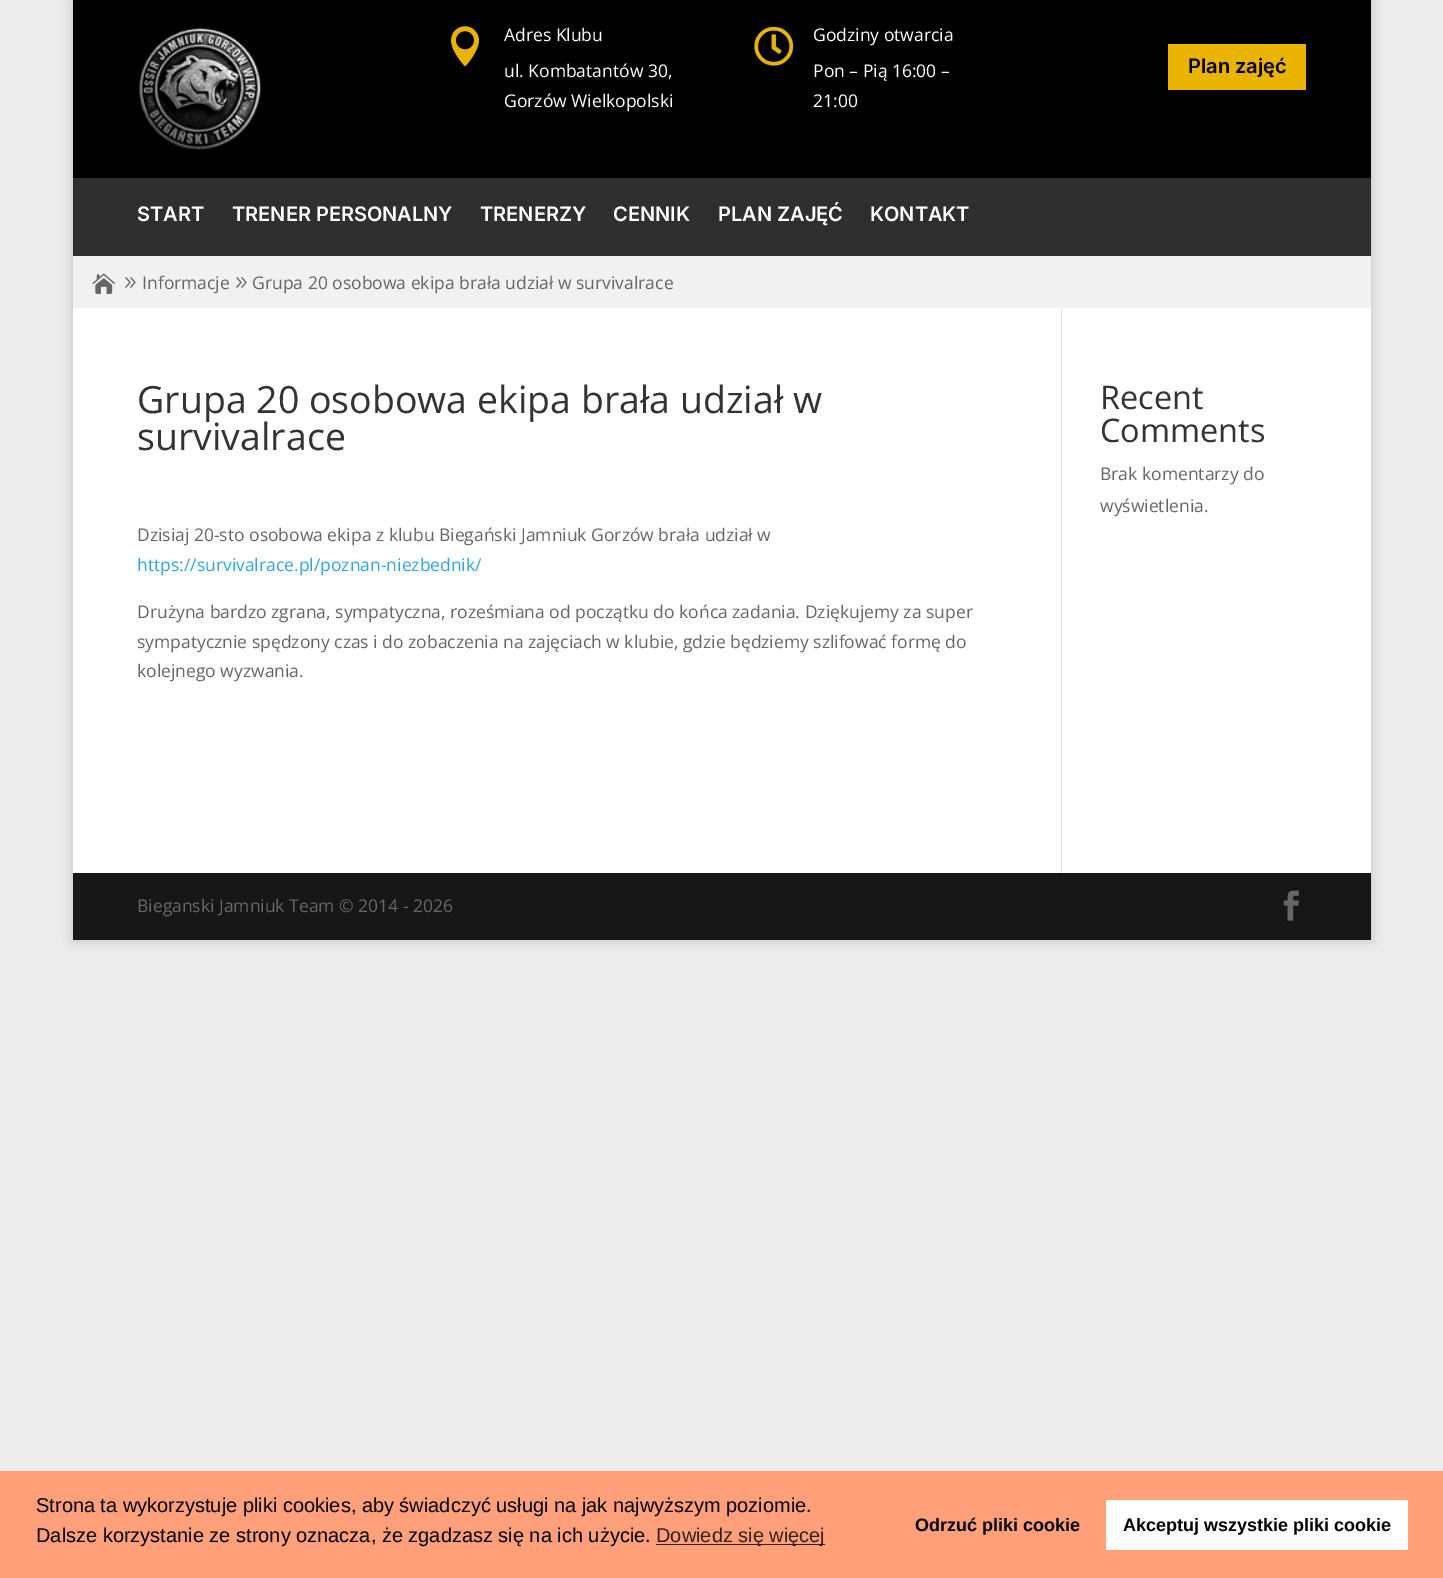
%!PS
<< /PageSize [1443 1578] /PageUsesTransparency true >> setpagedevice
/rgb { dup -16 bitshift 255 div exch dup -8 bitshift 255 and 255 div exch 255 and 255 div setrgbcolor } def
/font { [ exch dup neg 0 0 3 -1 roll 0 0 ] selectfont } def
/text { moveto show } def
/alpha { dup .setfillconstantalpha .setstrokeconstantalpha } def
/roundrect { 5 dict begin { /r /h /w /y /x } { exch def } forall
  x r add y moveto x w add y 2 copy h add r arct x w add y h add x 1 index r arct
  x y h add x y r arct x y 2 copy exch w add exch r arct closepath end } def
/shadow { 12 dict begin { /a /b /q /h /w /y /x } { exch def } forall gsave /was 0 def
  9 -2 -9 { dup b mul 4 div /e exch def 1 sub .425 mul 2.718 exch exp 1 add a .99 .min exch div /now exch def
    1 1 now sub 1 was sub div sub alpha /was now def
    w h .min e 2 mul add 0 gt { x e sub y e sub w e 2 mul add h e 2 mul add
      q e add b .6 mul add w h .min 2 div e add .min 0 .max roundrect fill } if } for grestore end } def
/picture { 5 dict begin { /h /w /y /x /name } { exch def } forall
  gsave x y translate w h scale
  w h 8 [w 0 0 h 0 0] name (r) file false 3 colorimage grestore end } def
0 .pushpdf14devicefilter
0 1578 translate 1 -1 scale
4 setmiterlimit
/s1 { /OpenSans-Regular 17.5 font 16#FFFFFF rgb } def
/s2 { /Inter-SemiBold 20 font 16#000000 rgb } def
/s3 { /Inter-SemiBold 20 font 16#FFFFFF rgb } def
/s4 { /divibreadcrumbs-Regular 22 font 16#666666 rgb } def
/s5 { /OpenSans-Regular 17.5 font 16#666666 rgb } def
/s6 { /OpenSans-Regular 37.5 font 16#333333 rgb } def
/s7 { /OpenSans-Regular 17.5 font 16#2EA3F2 rgb } def
/s8 { /OpenSans-Regular 32.5 font 16#333333 rgb } def
/s9 { /LiberationSans-Regular 20 font 16#000000 rgb } def
/s10 { /LiberationSans-Regular 20 font 16#332018 rgb } def
/s11 { /LiberationSans-Bold 18 font 16#000000 rgb } def
16#EDEDED rgb
0 0 1443 1578 rectfill
16#000000 rgb
73 0 1298 940 0 6 0.2 shadow
73 0 1298 178 rectfill
(pic1.raw) 138 27 124 123 picture
(pic2.raw) 451 26 28 41 picture
s1
(Adres Klubu) 504 41 text
(ul. Kombatantów 30,) 504 77 text
(Gorzów Wielkopolski) 504 107 text
(pic3.raw) 754 26 40 40 picture
(Godziny otwarcia) 813 41 text
(Pon – Pią 16:00 –) 813 77 text
(21:00) 813 107 text
16#EAB300 rgb
1168 44 138 46 rectfill
s2
(Plan zajęć) 1188 73 text
16#2F2F2F rgb
73 178 1298 78 rectfill
s3
(START) 137 221 text
(TRENER PERSONALNY) 232 221 text
(TRENERZY) 480 221 text
(CENNIK) 613 221 text
(PLAN ZAJĘĆ) 718 221 text
(KONTAKT) 870 221 text
16#F1F1F1 rgb
73 256 1298 52 rectfill
(pic4.raw) 92 273 23 21 picture
s4
(9) 119 292 text
s5
(Informacje) 142 289 text
s4
(9) 230 292 text
s5
(Grupa 20 osobowa ekipa brała udział w survivalrace) 252 289 text
16#FFFFFF rgb
73 308 1298 565 rectfill
16#E2E2E2 rgb
1061 308 1 565 rectfill
s6
(Grupa 20 osobowa ekipa brała udział w) 137 413 text
(survivalrace) 137 450 text
s5
(Dzisiaj 20-sto osobowa ekipa z klubu Biegański Jamniuk Gorzów brała udział w) 137 541 text
s7
(https://survivalrace.pl/poznan-niezbednik/) 137 571 text
s5
(Drużyna bardzo zgrana, sympatyczna, roześmiana od początku do końca zadania. Dziękujemy za super) 137 618 text
(sympatycznie spędzony czas i do zobaczenia na zajęciach w klubie, gdzie będziemy szlifować formę do) 137 648 text
(kolejnego wyzwania.) 137 677 text
s8
(Recent) 1100 409 text
(Comments) 1100 442 text
s5
(Brak komentarzy do) 1100 480 text
(wyświetlenia.) 1100 512 text
16#171717 rgb
73 873 1298 67 rectfill
s5
(Bieganski Jamniuk Team © 2014 - 2026) 137 912 text
(pic5.raw) 1283 890 16 31 picture
16#FFA07A rgb
0 1471 1443 107 rectfill
s9
(Strona ta wykorzystuje pliki cookies, aby świadczyć usługi na jak najwyższym poziomie.) 36 1512 text
(Dalsze korzystanie ze strony oznacza, że zgadzasz się na ich użycie.) 36 1542 text
16#332018 rgb
656 1544 169 1 rectfill
(Dowiedz się więcej) 656 1542 text
s11
(Odrzuć pliki cookie) 915 1531 text
16#FFFFFF rgb
1106 1500 302 50 rectfill
s11
(Akceptuj wszystkie pliki cookie) 1123 1531 text
.poppdf14devicefilter showpage
